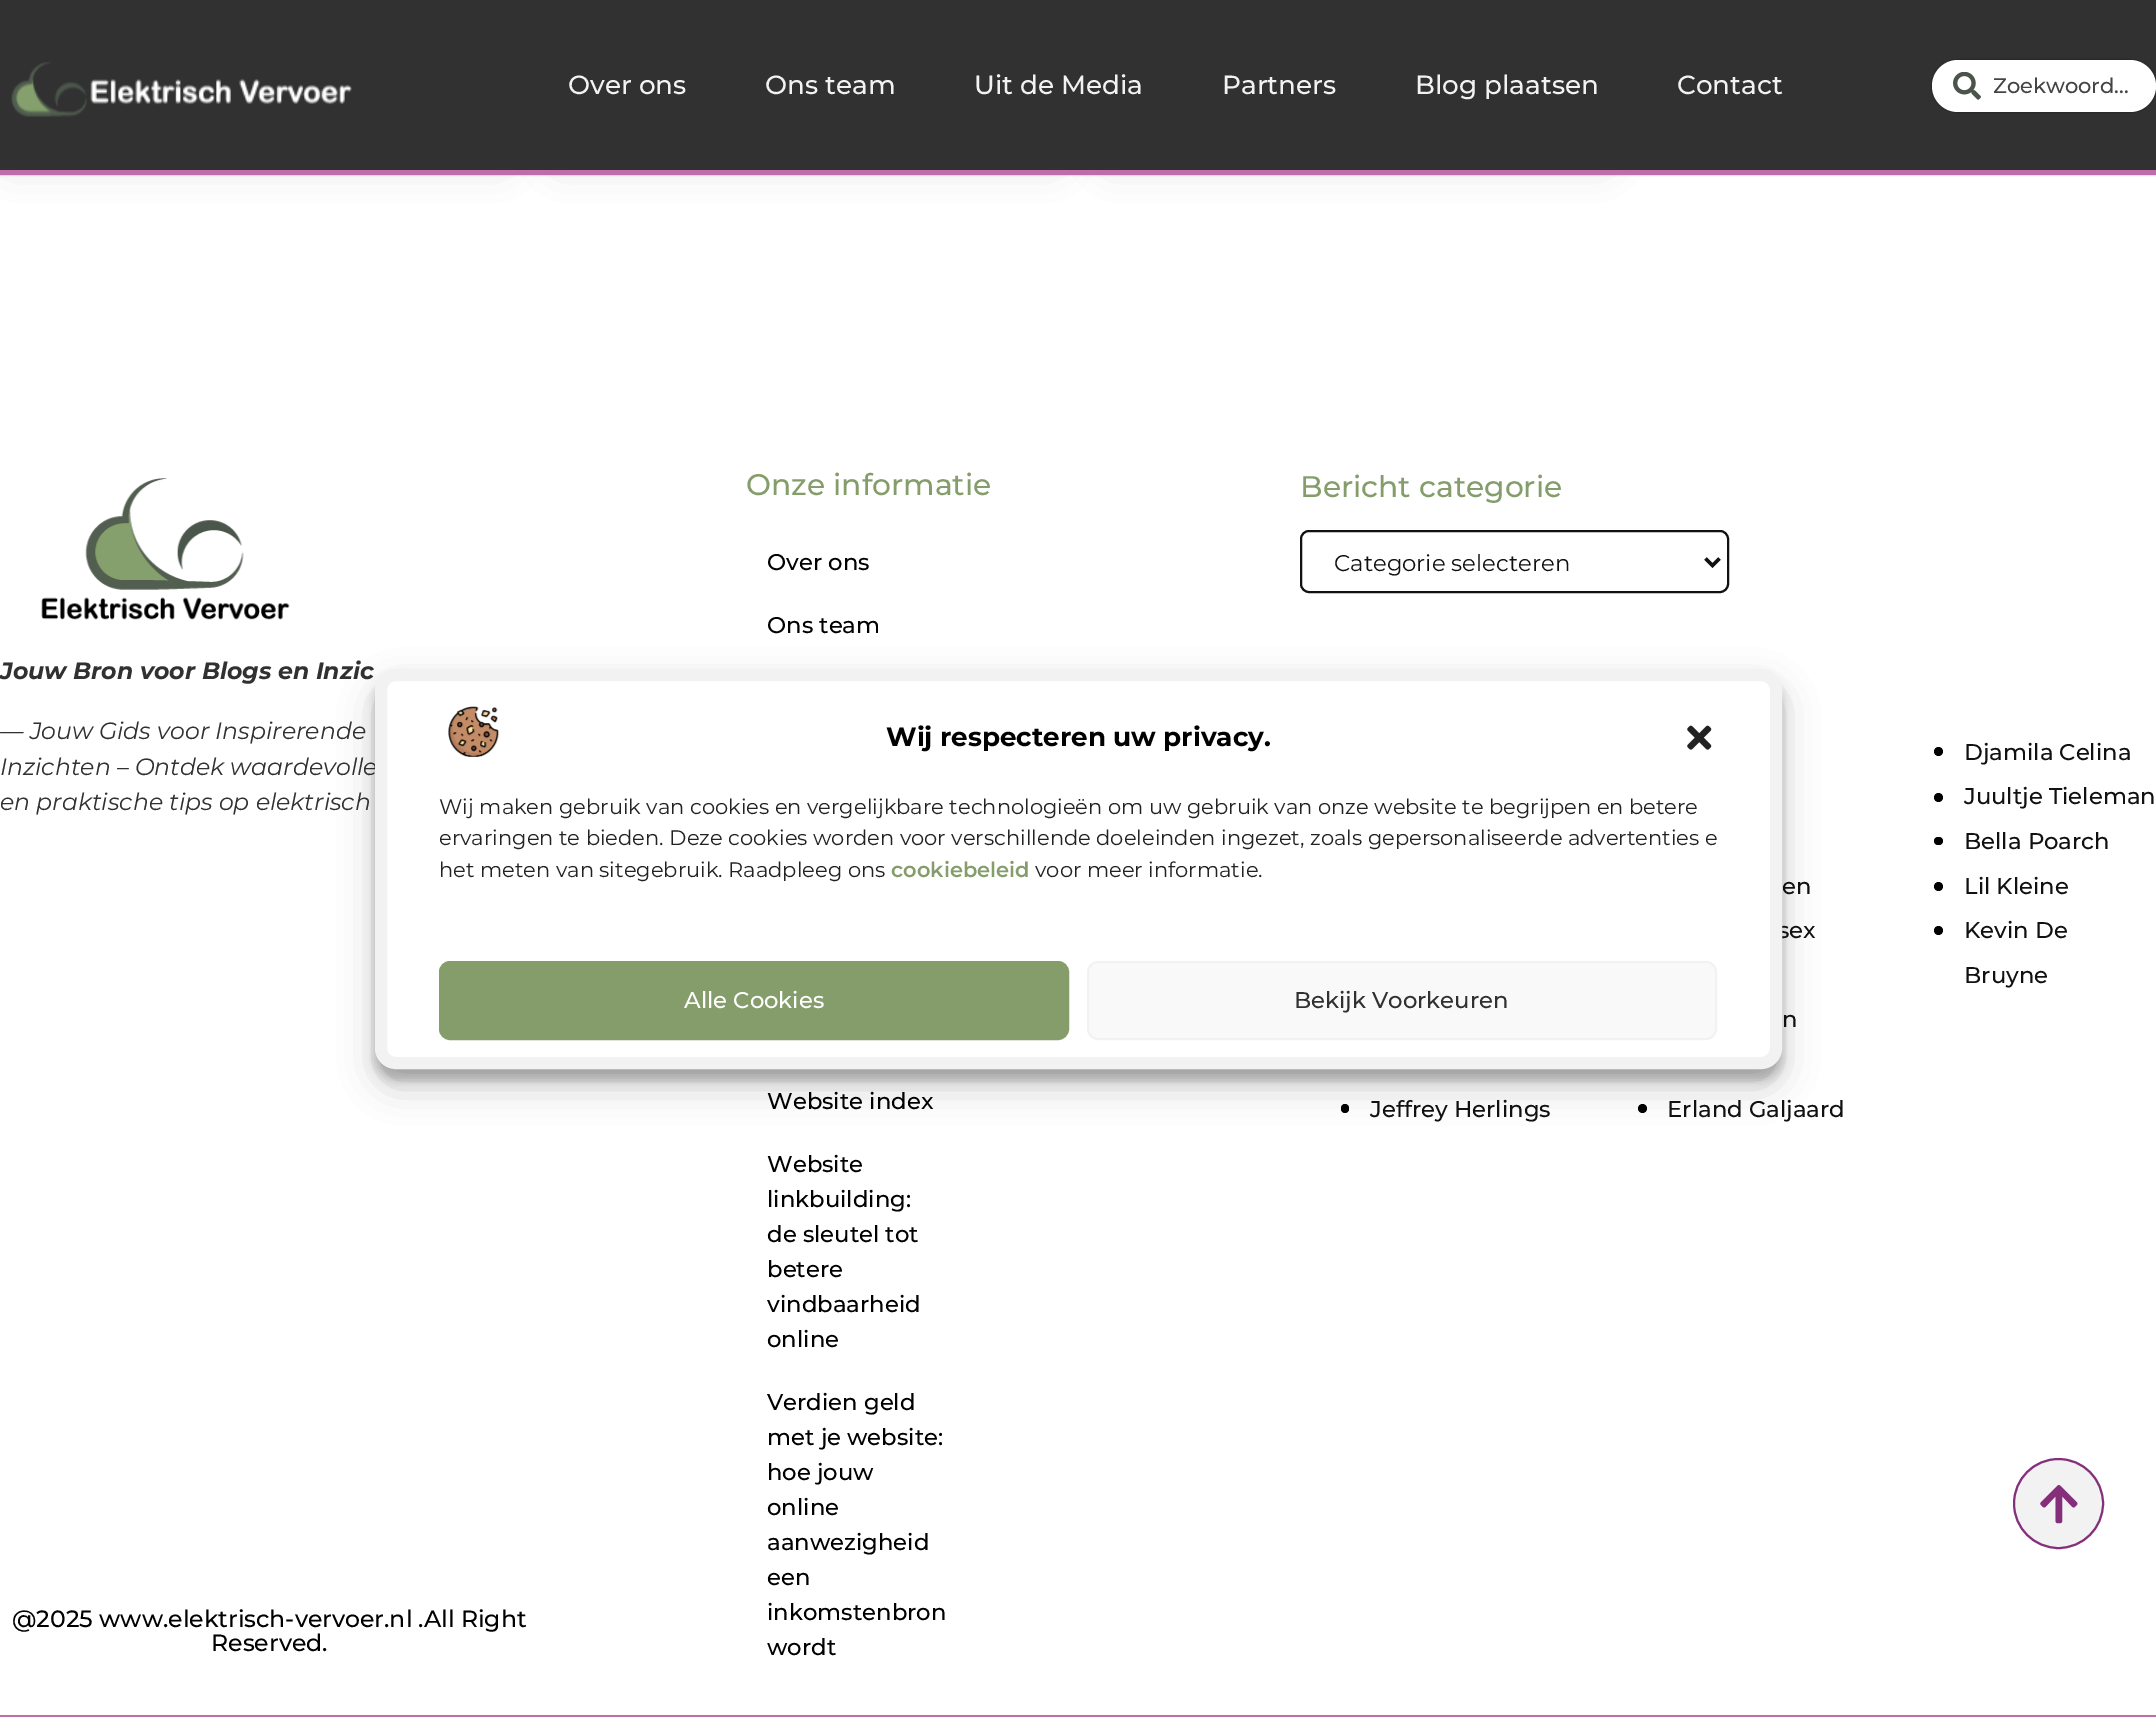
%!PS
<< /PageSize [2156 1735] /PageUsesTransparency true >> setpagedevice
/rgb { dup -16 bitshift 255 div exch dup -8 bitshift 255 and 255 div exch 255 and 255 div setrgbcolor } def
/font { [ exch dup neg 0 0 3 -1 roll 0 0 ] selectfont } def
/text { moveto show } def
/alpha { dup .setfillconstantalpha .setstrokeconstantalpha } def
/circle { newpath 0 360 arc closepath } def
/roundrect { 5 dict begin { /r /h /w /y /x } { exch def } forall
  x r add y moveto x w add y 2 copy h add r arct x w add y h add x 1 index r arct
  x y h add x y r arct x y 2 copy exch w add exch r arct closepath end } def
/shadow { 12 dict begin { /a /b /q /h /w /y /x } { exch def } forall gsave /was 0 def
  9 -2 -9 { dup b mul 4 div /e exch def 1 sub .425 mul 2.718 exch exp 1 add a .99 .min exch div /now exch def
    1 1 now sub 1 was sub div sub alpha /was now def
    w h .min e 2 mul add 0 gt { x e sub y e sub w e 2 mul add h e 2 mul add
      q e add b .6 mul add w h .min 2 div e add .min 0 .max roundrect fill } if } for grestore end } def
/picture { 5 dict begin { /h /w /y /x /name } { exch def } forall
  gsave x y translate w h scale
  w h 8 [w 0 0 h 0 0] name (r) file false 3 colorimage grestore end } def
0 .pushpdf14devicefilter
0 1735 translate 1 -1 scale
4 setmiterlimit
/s1 { /Montserrat-Medium 26.25 font 16#F2F2F2 rgb } def
/s2 { /Montserrat-Medium 21 font 16#444444 rgb } def
/s3 { /Montserrat-BoldItalic 23.6 font 16#313131 rgb } def
/s4 { /Montserrat-Italic 23.6 font 16#313131 rgb } def
/s5 { /Montserrat-Medium 23.6 font 16#000000 rgb } def
/s6 { /Montserrat-Medium 29.75 font 16#849D6A rgb } def
/s7 { /Montserrat-Medium 22.75 font 16#000000 rgb } def
/s8 { /Montserrat-Regular 22.75 font 16#111111 rgb } def
/s9 { /Montserrat-Medium 22.75 font 16#111111 rgb } def
/s10 { /Montserrat-Bold 26.25 font 16#000000 rgb } def
/s11 { /Montserrat-Regular 21 font 16#222222 rgb } def
/s12 { /Montserrat-SemiBold 21 font 16#849D6A rgb } def
/s13 { /Montserrat-Medium 22.75 font 16#FFFFFF rgb } def
/s14 { /Montserrat-Medium 22.75 font 16#313131 rgb } def
16#FFFFFF rgb
0 0 2156 1735 rectfill
16#000000 rgb
4 -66 505 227 9 19 0.2 shadow
553 -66 508 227 9 19 0.2 shadow
1104 -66 506 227 9 19 0.2 shadow
0 0 2156 175 0 1 0.33 shadow
16#313131 rgb
0 0 2156 170 rectfill
16#BD6EAA rgb
0 170 2156 5 rectfill
(pic1.raw) 11 62 341 55 picture
s1
(Over ons) 568 94 text
(Ons team) 765 94 text
(Uit de Media) 974 94 text
(Partners) 1222 94 text
(Blog plaatsen) 1415 94 text
(Contact) 1677 94 text
16#000000 rgb
1932 60 224 52 26 1 0.5 shadow
16#FFFFFF rgb
1932 60 224 52 26 roundrect fill
(pic2.raw) 1953 72 28 28 picture
s2
(Zoekwoord...) 1993 93 text
16#F2F2F2 rgb
2058.5 1503.5 44.5 circle gsave fill grestore
16#852E7A rgb
2 setlinewidth
stroke
(pic3.raw) 2040 1485 38 39 picture
16#BD6EAA rgb
0 1715 2156 2 rectfill
(pic4.raw) 41 478 249 142 picture
s3
(Jouw Bron voor Blogs en Inzic) 0 679 text
s4
(— Jouw Gids voor Inspirerende) 0 739 text
(Inzichten – Ontdek waardevolle) 0 775 text
(en praktische tips op elektrisch) 0 810 text
s5
(@2025 www.elektrisch-vervoer.nl .All Right) 12 1627 text
(Reserved.) 211 1651 text
s6
(Onze informatie) 746 495 text
s7
(Over ons) 767 570 text
(Ons team) 767 633 text
(Website index) 767 1109 text
(Website) 767 1172 text
(linkbuilding:) 767 1207 text
(de sleutel tot) 767 1242 text
(betere) 767 1277 text
(vindbaarheid) 767 1312 text
(online) 767 1347 text
(Verdien geld) 767 1410 text
(met je website:) 767 1445 text
(hoe jouw) 767 1480 text
(online) 767 1515 text
(aanwezigheid) 767 1550 text
(een) 767 1585 text
(inkomstenbron) 767 1620 text
(wordt) 767 1655 text
s6
(Bericht categorie) 1300 497 text
16#111111 rgb
1301 531 427 61 8 roundrect stroke
3.5 setlinewidth
1705.5 558.5 moveto 1712.5 565.5 lineto 1719.5 558.5 lineto stroke
s8
(Categorie selecteren) 1334 571 text
16#000000 rgb
1938.5 751.5 4.5 circle fill
s9
(Djamila Celina) 1964 760 text
16#000000 rgb
1938.5 797.5 4.5 circle fill
s9
(Juultje Tieleman) 1964 804 text
16#000000 rgb
1934 837 9 8 4 roundrect fill
s9
(Bella Poarch) 1964 849 text
(en) 1782 894 text
16#000000 rgb
1938.5 886.5 4.5 circle fill
s9
(Lil Kleine) 1964 894 text
(sex) 1778 938 text
16#000000 rgb
1938.5 930.5 4.5 circle fill
s9
(Kevin De) 1964 938 text
(Bruyne) 1964 983 text
(n) 1782 1027 text
16#000000 rgb
1341 1104 8 9 4 roundrect fill
s9
(Jeffrey Herlings) 1370 1117 text
16#000000 rgb
1642.5 1108.5 4.5 circle fill
s9
(Erland Galjaard) 1667 1117 text
16#000000 rgb
375 679 1407 401 21 5 0.23 shadow
375 686 1407 401 21 17.5 0.19 shadow
16#FFFFFF rgb
381 675 1395 388 15 roundrect gsave fill grestore
16#F2F2F2 rgb
12 setlinewidth
stroke
(pic5.raw) 448 706 51 51 picture
s10
(Wij respecteren uw privacy.) 886 746 text
(pic6.raw) 1687 725 25 25 picture
s11
(Wij maken gebruik van cookies en vergelijkbare technologieën om uw gebruik van onze website te begrijpen en betere) 439 814 text
(ervaringen te bieden. Deze cookies worden voor verschillende doeleinden ingezet, zoals gepersonaliseerde advertenties e) 439 845 text
(het meten van sitegebruik. Raadpleeg ons) 439 877 text
s12
(cookiebeleid) 891 877 text
s11
(voor meer informatie.) 1035 877 text
16#849D6A rgb
440 962 628 77 10 roundrect gsave fill grestore
2 setlinewidth
stroke
s13
(Alle Cookies) 684 1008 text
16#F9F9F9 rgb
1088 962 628 77 10 roundrect gsave fill grestore
16#F2F2F2 rgb
stroke
s14
(Bekijk Voorkeuren) 1294 1008 text
.poppdf14devicefilter showpage
